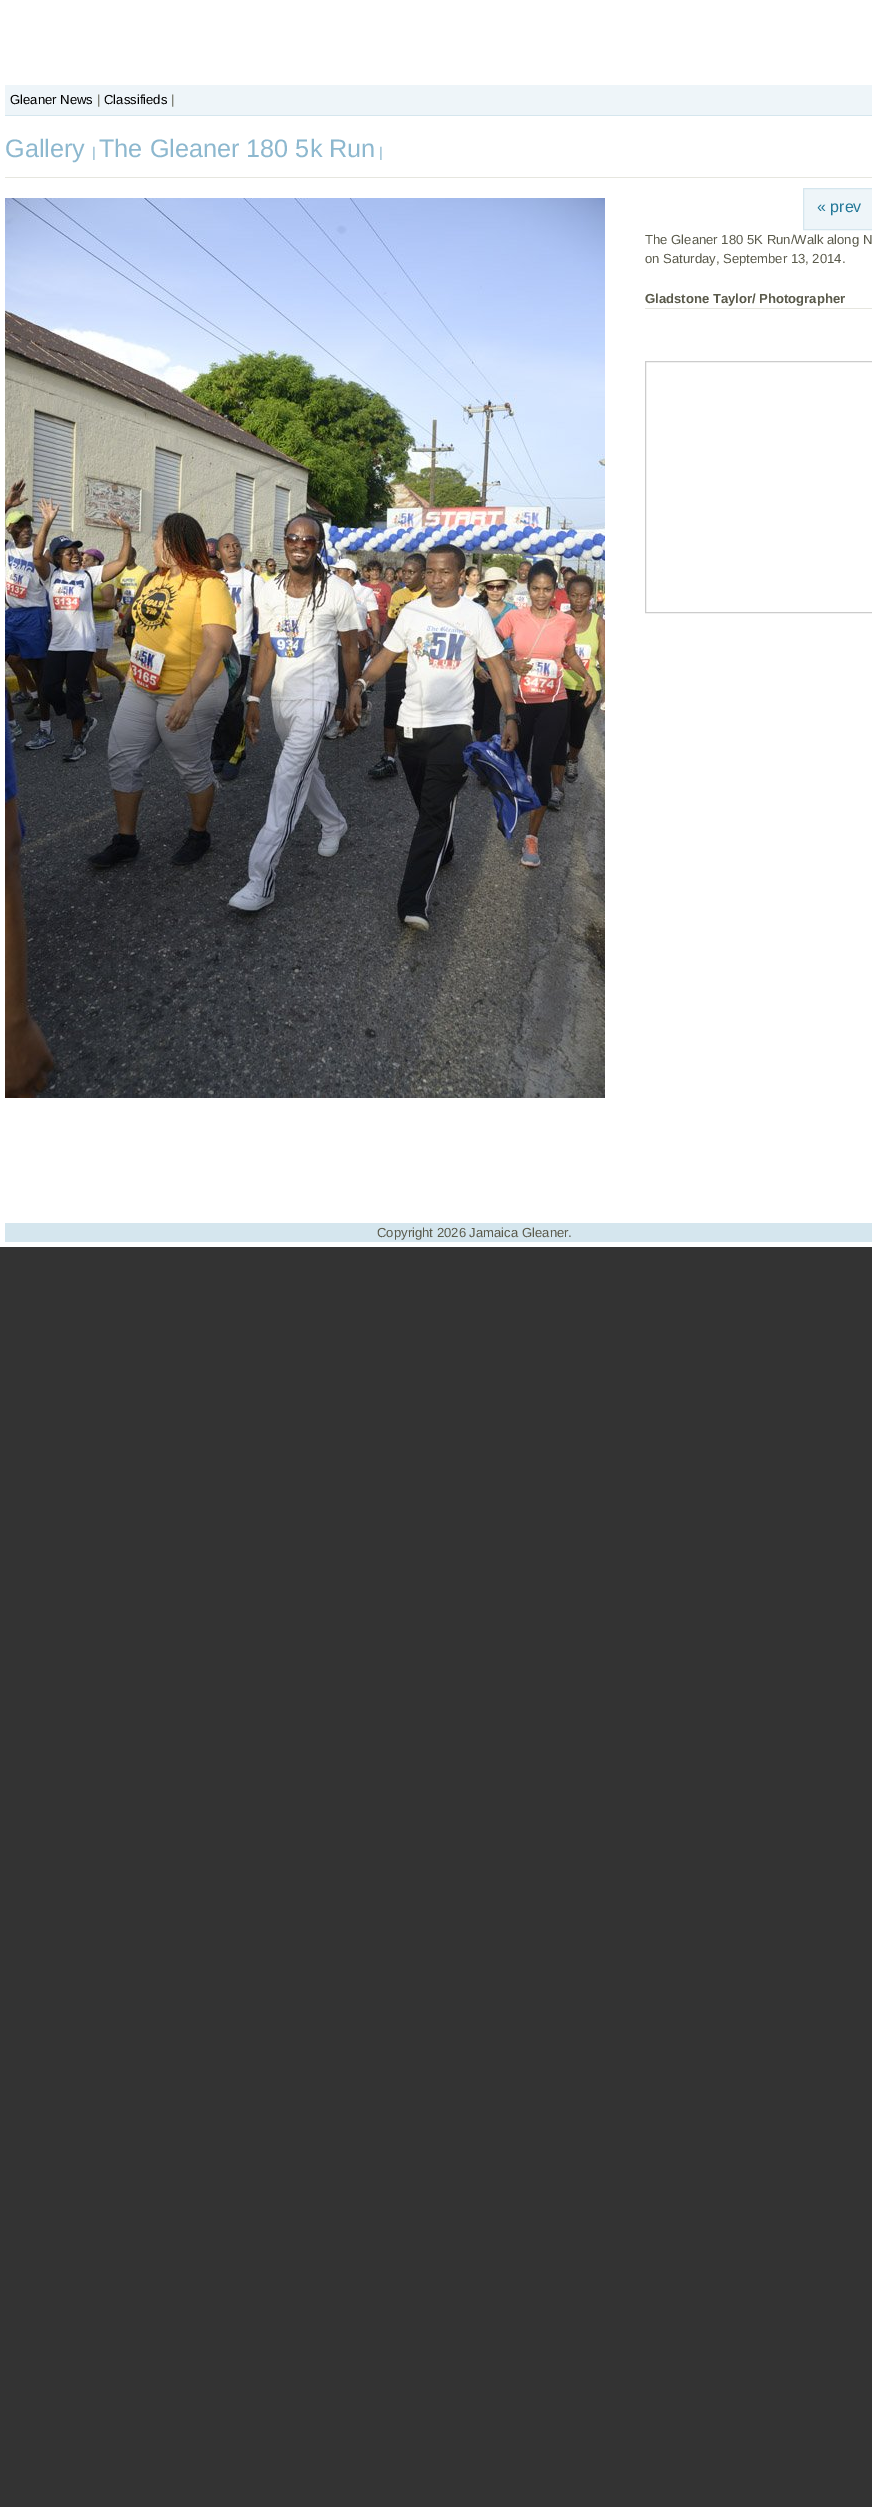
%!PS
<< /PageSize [872 2507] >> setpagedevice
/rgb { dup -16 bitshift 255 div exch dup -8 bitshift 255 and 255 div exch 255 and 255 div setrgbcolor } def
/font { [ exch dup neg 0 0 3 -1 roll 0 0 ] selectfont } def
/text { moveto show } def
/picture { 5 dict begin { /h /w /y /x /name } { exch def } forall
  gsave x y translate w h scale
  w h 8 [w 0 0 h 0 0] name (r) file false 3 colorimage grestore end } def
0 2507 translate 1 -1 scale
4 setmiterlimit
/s1 { /LiberationSans-Regular 13.1 font 16#000000 rgb } def
/s2 { /LiberationSans-Regular 13.1 font 16#5A5A4B rgb } def
/s3 { /LiberationSans-Regular 25.25 font 16#8DB8CF rgb } def
/s4 { /LiberationSans-Regular 14 font 16#8DB8CF rgb } def
/s5 { /LiberationSans-Regular 16 font 16#237898 rgb } def
/s6 { /LiberationSans-Bold 13.1 font 16#5A5A4B rgb } def
16#333333 rgb
0 0 872 2507 rectfill
16#FFFFFF rgb
0 0 872 1247 rectfill
16#EEF5F9 rgb
5 85 867 30 rectfill
16#D5E6EE rgb
5 115 867 1 rectfill
s1
(Gleaner News) 10 104 text
s2
(|) 97 104 text
s1
(Classifieds) 104 104 text
s2
(|) 171 104 text
16#E6E6DF rgb
5 177 867 1 rectfill
s3
(Gallery) 5 157 text
s4
(|) 92 157 text
s3
(The Gleaner 180 5k Run) 99 157 text
s4
(|) 379 157 text
(pic1.raw) 5 198 600 900 picture
16#EEF5F9 rgb
803.5 188.5 moveto 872.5 188.5 lineto 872.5 229.5 lineto 803.5 229.5 lineto closepath gsave fill grestore
16#D5E6EE rgb
stroke
s5
(« prev) 817 212 text
s2
(The Gleaner 180 5K Run/Walk along N) 645 244 text
(on Saturday, September 13, 2014.) 645 263 text
s6
(Gladstone Taylor/ Photographer) 645 303 text
16#E6E6DF rgb
645 308 227 1 rectfill
16#CCCCCC rgb
645.5 361.5 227 251 rectstroke
16#D5E6EE rgb
5 1223 867 19 rectfill
s2
(Copyright 2026 Jamaica Gleaner.) 377 1237 text
showpage
